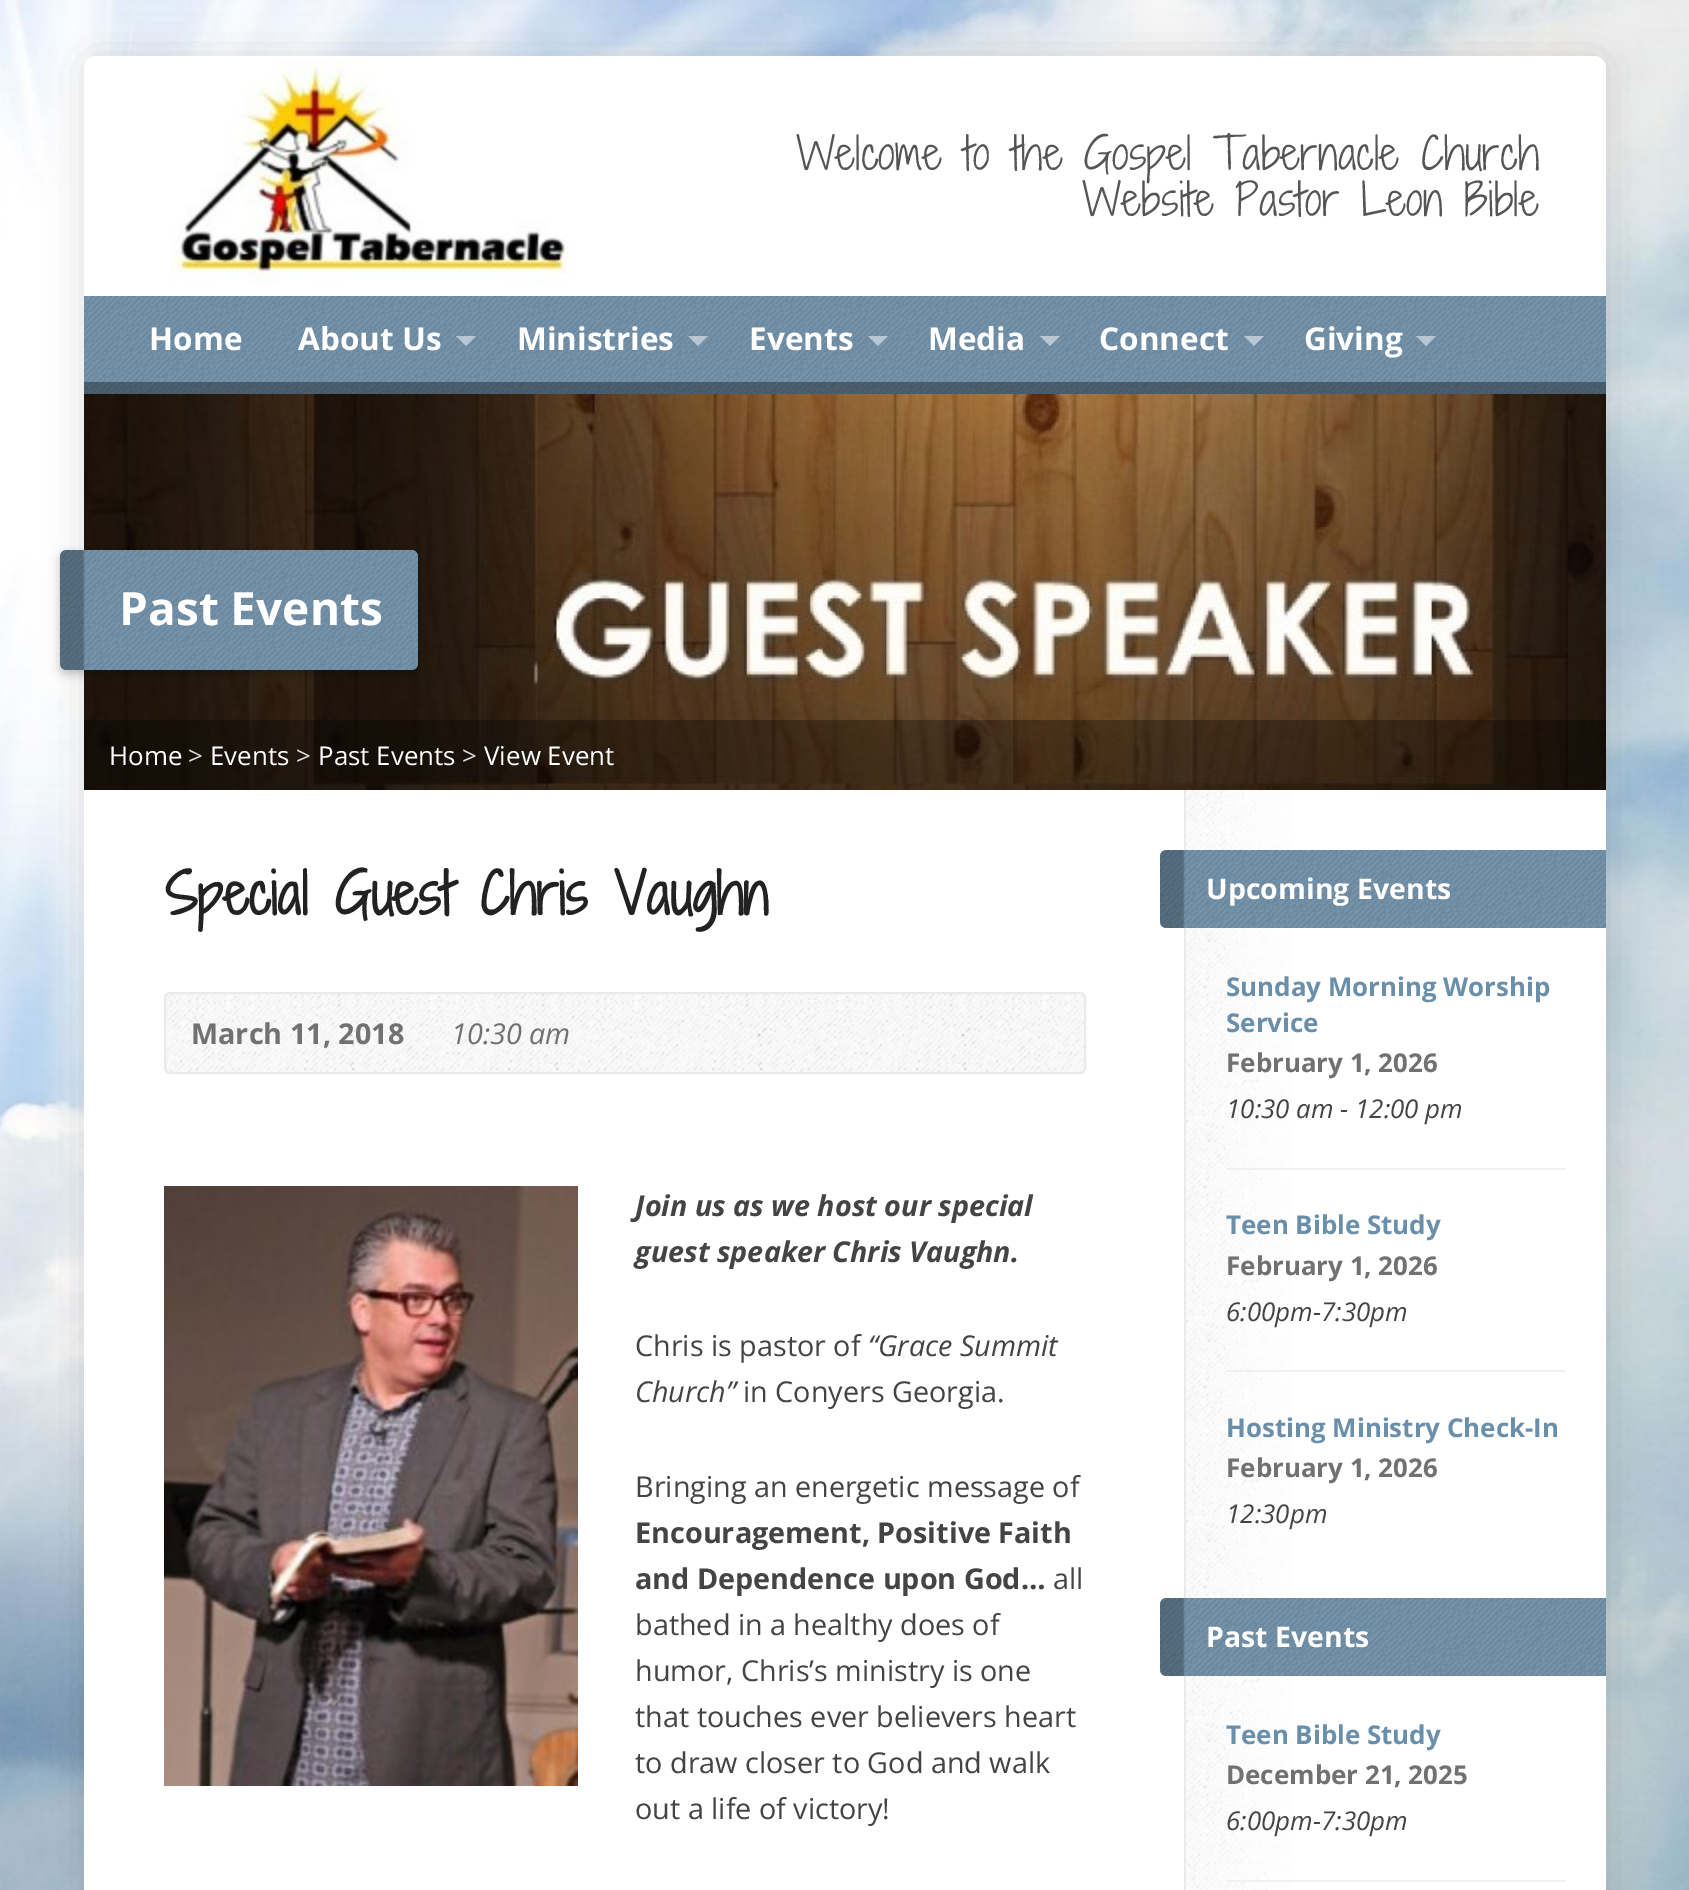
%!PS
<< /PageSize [1689 1890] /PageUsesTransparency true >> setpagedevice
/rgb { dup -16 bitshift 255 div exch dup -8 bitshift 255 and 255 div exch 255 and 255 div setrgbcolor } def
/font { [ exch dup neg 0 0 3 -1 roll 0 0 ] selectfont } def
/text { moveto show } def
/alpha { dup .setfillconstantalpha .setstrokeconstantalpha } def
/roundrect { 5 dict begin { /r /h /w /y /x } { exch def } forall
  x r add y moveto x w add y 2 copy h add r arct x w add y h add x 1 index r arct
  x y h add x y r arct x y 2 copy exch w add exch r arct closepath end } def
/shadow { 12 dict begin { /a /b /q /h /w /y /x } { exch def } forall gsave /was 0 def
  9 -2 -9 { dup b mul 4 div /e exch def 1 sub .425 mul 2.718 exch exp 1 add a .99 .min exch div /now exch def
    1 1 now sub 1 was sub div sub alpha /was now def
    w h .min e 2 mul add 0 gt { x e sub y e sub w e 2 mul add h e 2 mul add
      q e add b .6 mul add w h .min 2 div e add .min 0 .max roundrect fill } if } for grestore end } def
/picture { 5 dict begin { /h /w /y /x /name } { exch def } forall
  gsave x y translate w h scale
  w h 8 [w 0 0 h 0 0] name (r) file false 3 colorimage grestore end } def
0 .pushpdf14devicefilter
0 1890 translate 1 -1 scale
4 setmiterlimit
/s1 { /ShadowsIntoLightTwo-Light 43.25 font 16#555555 rgb } def
/s2 { /OpenSans-Bold 31.5 font 16#FFFFFF rgb } def
/s3 { /OpenSans-Bold 46 font 16#FFFFFF rgb } def
/s4 { /OpenSans-Regular 25.9 font 16#FFFFFF rgb } def
/s5 { /OpenSans-Regular 25.9 font 16#DDDDDD rgb } def
/s6 { /ShadowsIntoLightTwo-Bold 54.75 font 16#222222 rgb } def
/s7 { /OpenSans-Bold 28.75 font 16#717171 rgb } def
/s8 { /OpenSans-Italic 28.75 font 16#717171 rgb } def
/s9 { /OpenSans-BoldItalic 28.75 font 16#444444 rgb } def
/s10 { /OpenSans-Regular 28.75 font 16#444444 rgb } def
/s11 { /OpenSans-Italic 28.75 font 16#444444 rgb } def
/s12 { /OpenSans-Bold 28.75 font 16#444444 rgb } def
/s13 { /OpenSans-Bold 28.5 font 16#FFFFFF rgb } def
/s14 { /OpenSans-Bold 25.9 font 16#6A8FAB rgb } def
/s15 { /OpenSans-Bold 25.9 font 16#717171 rgb } def
/s16 { /OpenSans-Italic 25.9 font 16#444444 rgb } def
16#FFFFFF rgb
0 0 1689 1890 rectfill
(pic1.raw) 0 0 1689 1890 picture
16#000000 rgb
84 56 1522 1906 12 20 0.12 shadow
16#FFFFFF rgb
84 56 1522 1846 12 roundrect fill
(pic2.raw) 170 60 399 224 picture
s1
(Welcome to the Gospel Tabernacle Church) 796 170 text
(Website Pastor Leon Bible) 1082 216 text
16#6A8FAB rgb
84 296 1522 98 rectfill
(pic3.raw) 84 296 1522 98 picture
s2
(Home) 149 350 text
(About Us) 298 350 text
0.5 alpha
456 336 moveto 476 336 lineto 466 346 lineto closepath fill
1 alpha
(Ministries) 517 350 text
0.5 alpha
688 336 moveto 708 336 lineto 698 346 lineto closepath fill
1 alpha
(Events) 749 350 text
0.5 alpha
868 336 moveto 888 336 lineto 878 346 lineto closepath fill
1 alpha
(Media) 928 350 text
0.5 alpha
1040 336 moveto 1060 336 lineto 1050 346 lineto closepath fill
1 alpha
(Connect) 1099 350 text
0.5 alpha
1244 336 moveto 1264 336 lineto 1254 346 lineto closepath fill
1 alpha
(Giving) 1304 350 text
0.5 alpha
1416 336 moveto 1436 336 lineto 1426 346 lineto closepath fill
0.35 alpha
16#000000 rgb
84 382 1522 12 rectfill
1 alpha
(pic4.raw) 84 394 1522 396 picture
60 554 358 120 6 5 0.24 shadow
16#6A8FAB rgb
60 550 358 120 6 roundrect fill
(pic5.raw) 60 550 358 120 picture
s3
(Past Events) 119 625 text
0.3 alpha
16#000000 rgb
84 720 1522 70 rectfill
1 alpha
s4
(Home) 109 765 text
s5
(>) 188 765 text
s4
(Events) 210 765 text
s5
(>) 296 765 text
s4
(Past Events) 318 765 text
s5
(>) 462 765 text
s4
(View Event) 484 765 text
s6
(Special Guest Chris Vaughn) 165 915 text
(pic6.raw) 164 992 922 82 picture
16#EAEAEA rgb
2 setlinewidth
165 993 920 80 5 roundrect stroke
s7
(March 11, 2018) 191 1044 text
s8
(10:30 am) 451 1044 text
(pic7.raw) 164 1186 414 600 picture
s9
(Join us as we host our special) 635 1216 text
(guest speaker Chris Vaughn.) 635 1262 text
s10
(Chris is pastor of) 635 1356 text
s11
(“Grace Summit) 868 1356 text
(Church”) 635 1402 text
s10
(in Conyers Georgia.) 743 1402 text
(Bringing an energetic message of) 635 1497 text
s12
(Encouragement, Positive Faith) 635 1543 text
(and Dependence upon God…) 635 1589 text
s10
(all) 1053 1589 text
(bathed in a healthy does of) 635 1635 text
(humor, Chris’s ministry is one) 635 1681 text
(that touches ever believers heart) 635 1727 text
(to draw closer to God and walk) 635 1773 text
(out a life of victory!) 635 1819 text
(pic8.raw) 1186 790 105 1100 picture
16#EAEAEA rgb
1184 790 2 1100 rectfill
16#6A8FAB rgb
1166 850 moveto 1606 850 lineto 1606 928 lineto 1166 928 lineto 1162.5 928 1160 925.5 1160 922 curveto 1160 856 lineto 1160 852.5 1162.5 850 1166 850 curveto closepath fill
(pic9.raw) 1160 850 446 78 picture
s13
(Upcoming Events) 1206 899 text
s14
(Sunday Morning Worship) 1226 996 text
(Service) 1226 1032 text
s15
(February 1, 2026) 1226 1072 text
s16
(10:30 am - 12:00 pm) 1226 1118 text
16#F1F1F1 rgb
1226 1168 340 2 rectfill
s14
(Teen Bible Study) 1226 1234 text
s15
(February 1, 2026) 1226 1275 text
s16
(6:00pm-7:30pm) 1226 1321 text
16#F1F1F1 rgb
1226 1370 340 2 rectfill
s14
(Hosting Ministry Check-In) 1226 1437 text
s15
(February 1, 2026) 1226 1477 text
s16
(12:30pm) 1226 1523 text
16#6A8FAB rgb
1166 1598 moveto 1606 1598 lineto 1606 1676 lineto 1166 1676 lineto 1162.5 1676 1160 1673.5 1160 1670 curveto 1160 1604 lineto 1160 1600.5 1162.5 1598 1166 1598 curveto closepath fill
(pic9.raw) 1160 1598 446 78 picture
s13
(Past Events) 1206 1647 text
s14
(Teen Bible Study) 1226 1744 text
s15
(December 21, 2025) 1226 1784 text
s16
(6:00pm-7:30pm) 1226 1830 text
16#F1F1F1 rgb
1226 1880 340 2 rectfill
.poppdf14devicefilter showpage
